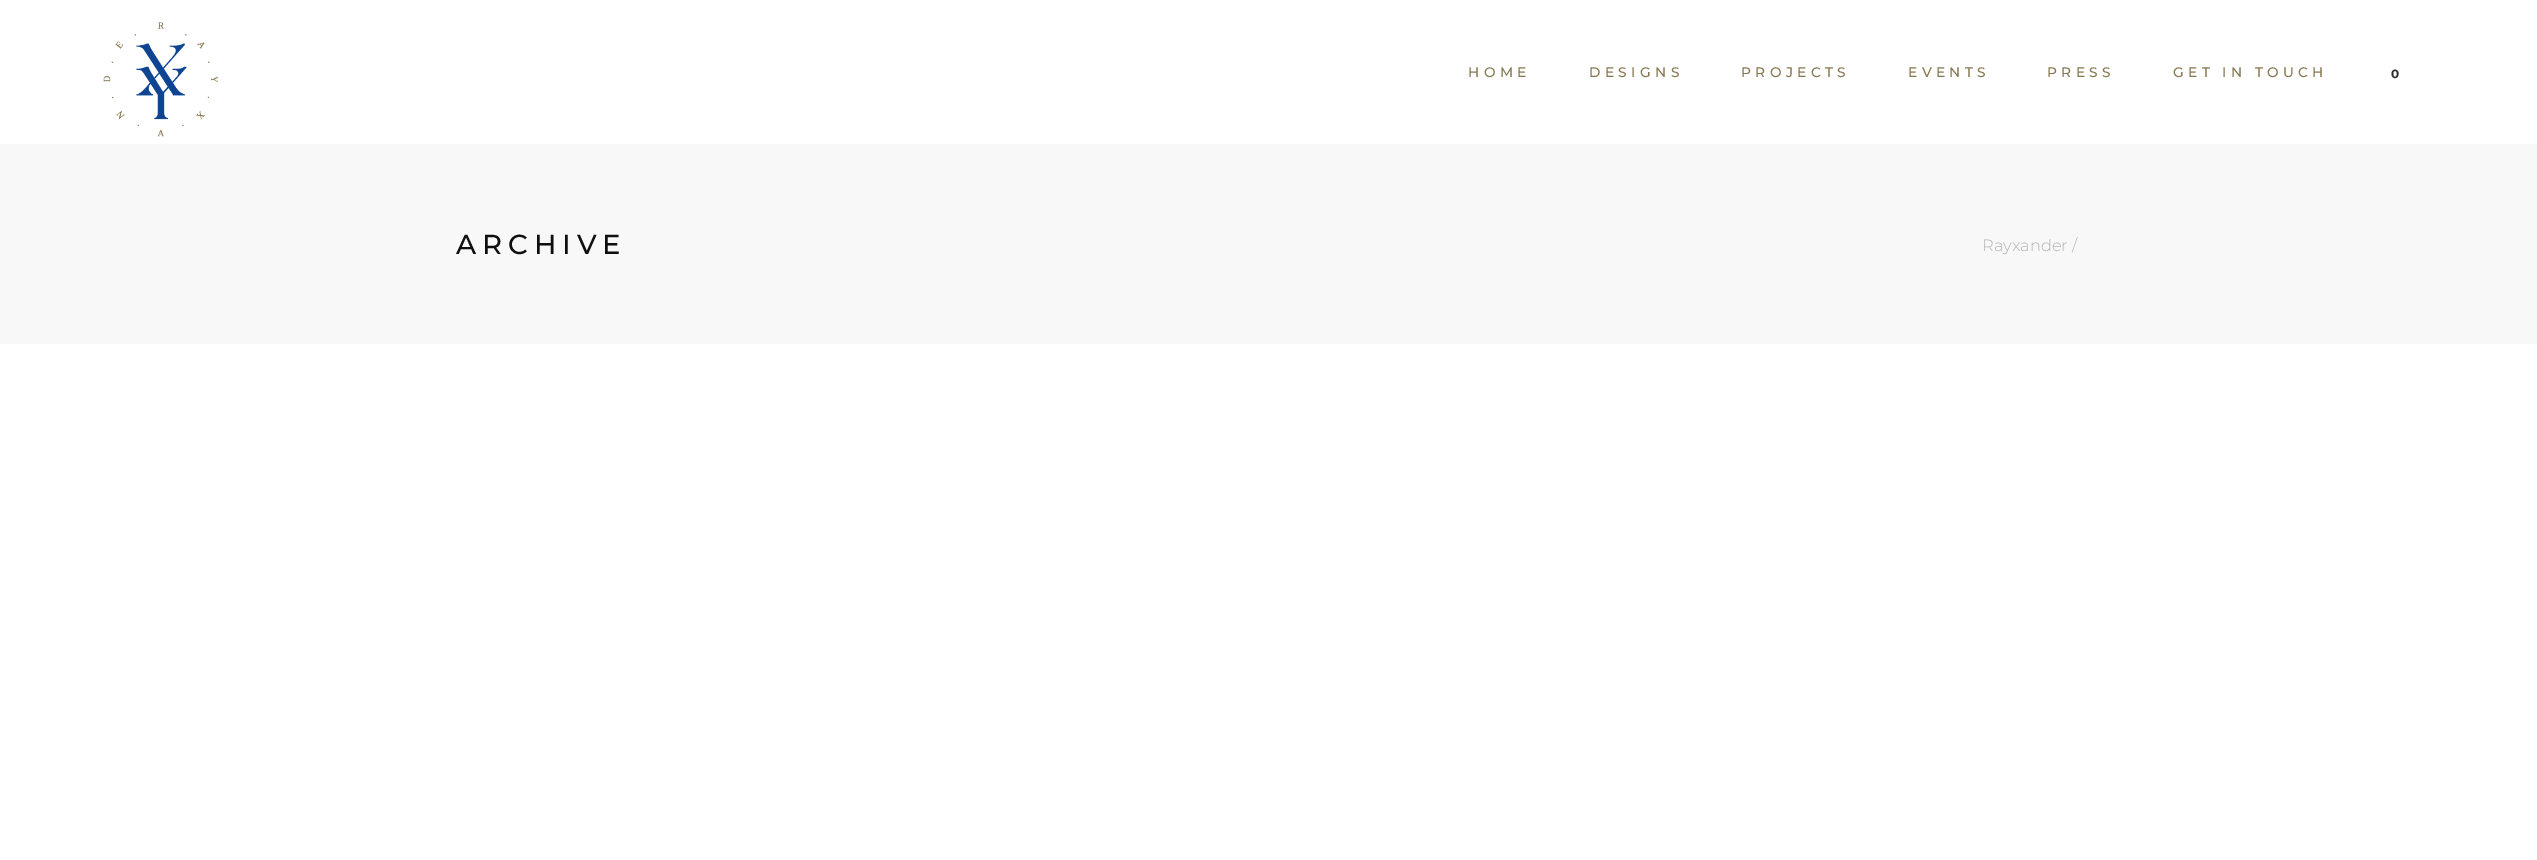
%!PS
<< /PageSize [2537 860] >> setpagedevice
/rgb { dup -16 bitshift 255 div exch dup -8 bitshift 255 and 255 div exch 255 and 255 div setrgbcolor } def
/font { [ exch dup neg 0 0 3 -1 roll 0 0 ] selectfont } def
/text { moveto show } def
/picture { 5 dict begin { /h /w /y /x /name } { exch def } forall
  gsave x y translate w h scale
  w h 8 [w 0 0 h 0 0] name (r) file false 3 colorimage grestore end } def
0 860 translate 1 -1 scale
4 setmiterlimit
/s1 { /Montserrat-Bold 12 font 16#303030 rgb } def
/s2 { /Montserrat-Light 16.25 font 16#B3B3B3 rgb } def
16#FFFFFF rgb
0 0 2537 860 rectfill
(pic1.raw) 103 22 115 115 picture
/Montserrat-Medium 13.75 font
16#86764E rgb
1468 77 moveto 4.4 0 (HOME) ashow
1589 77 moveto 4.4 0 (DESIGNS) ashow
1741 77 moveto 4.4 0 (PROJECTS) ashow
1908 77 moveto 4.4 0 (EVENTS) ashow
2047 77 moveto 4.4 0 (PRESS) ashow
2173 77 moveto 4.4 0 (GET IN TOUCH) ashow
s1
(0) 2391 78 text
16#F8F8F8 rgb
0 144 2537 200 rectfill
/Montserrat-Medium 27.5 font
16#0F0F0F rgb
456 254 moveto 6 0 (ARCHIVE) ashow
s2
(Rayxander /) 1982 251 text
showpage
